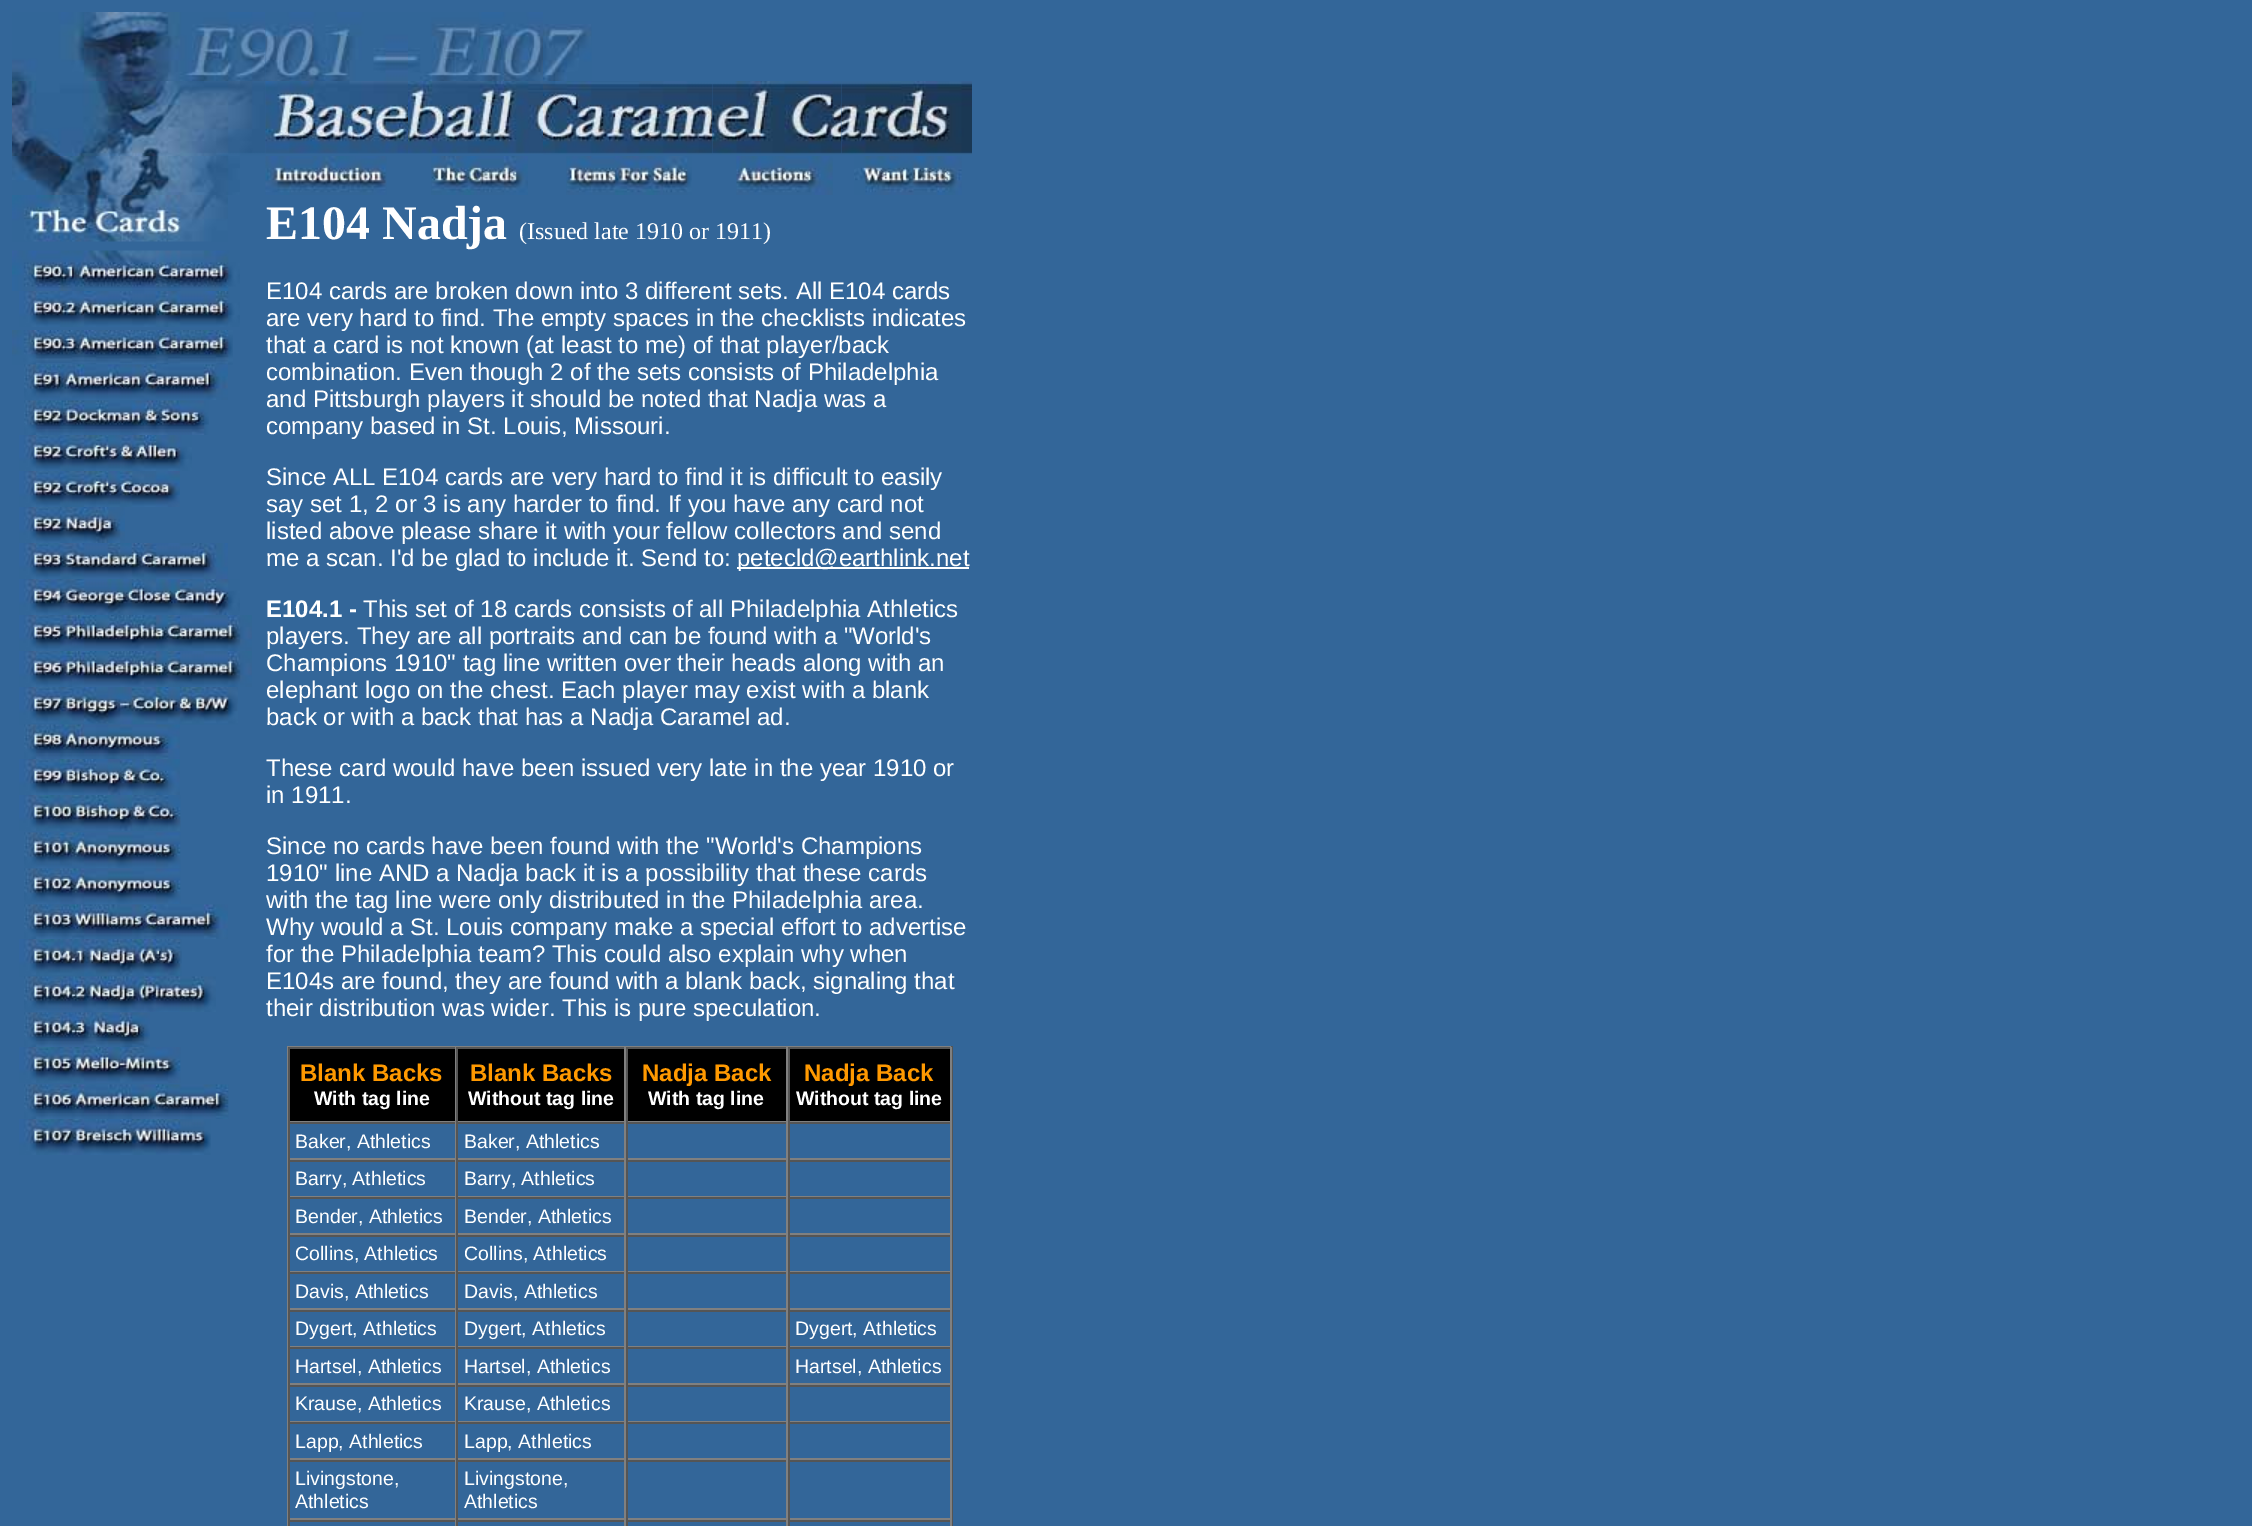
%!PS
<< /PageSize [2252 1526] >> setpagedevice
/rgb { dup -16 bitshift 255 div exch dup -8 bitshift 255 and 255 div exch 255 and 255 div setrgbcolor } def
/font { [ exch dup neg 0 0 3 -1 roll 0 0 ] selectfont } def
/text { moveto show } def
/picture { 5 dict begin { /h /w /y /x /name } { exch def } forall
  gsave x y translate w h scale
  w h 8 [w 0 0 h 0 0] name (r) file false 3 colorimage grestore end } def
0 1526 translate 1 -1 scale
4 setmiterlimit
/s1 { /LiberationSerif-Bold 48 font 16#FFFFFF rgb } def
/s2 { /LiberationSerif-Regular 24 font 16#FFFFFF rgb } def
/s3 { /LiberationSans-Regular 24 font 16#FFFFFF rgb } def
/s4 { /LiberationSans-Bold 24 font 16#FFFFFF rgb } def
/s5 { /LiberationSans-Bold 24 font 16#FF9900 rgb } def
/s6 { /LiberationSans-Bold 19.5 font 16#FFFFFF rgb } def
/s7 { /LiberationSans-Regular 19.5 font 16#FFFFFF rgb } def
16#336699 rgb
0 0 2252 1526 rectfill
(pic1.raw) 12 12 254 69 picture
(pic2.raw) 265 12 143 69 picture
(pic3.raw) 408 12 135 69 picture
(pic4.raw) 543 24 49 57 picture
(pic5.raw) 12 81 254 75 picture
(pic6.raw) 265 81 143 73 picture
(pic7.raw) 408 81 135 73 picture
(pic8.raw) 543 81 170 74 picture
(pic9.raw) 712 81 130 74 picture
(pic10.raw) 841 81 131 74 picture
(pic11.raw) 12 156 228 39 picture
(pic12.raw) 265 156 122 39 picture
(pic13.raw) 431 156 97 39 picture
(pic14.raw) 566 156 126 39 picture
(pic15.raw) 736 156 97 39 picture
(pic16.raw) 854 156 108 39 picture
(pic17.raw) 12 195 216 47 picture
s1
(E104 Nadja) 266 239 text
s2
(\(Issued late 1910 or 1911\)) 519 239 text
(pic18.raw) 12 250 228 41 picture
(pic19.raw) 19 291 221 36 picture
(pic20.raw) 12 330 221 35 picture
(pic21.raw) 24 364 204 36 picture
(pic22.raw) 24 400 185 35 picture
(pic23.raw) 19 435 173 36 picture
(pic24.raw) 19 471 161 36 picture
(pic25.raw) 19 507 106 36 picture
(pic26.raw) 19 543 209 36 picture
(pic27.raw) 19 579 221 36 picture
(pic28.raw) 19 615 233 36 picture
(pic29.raw) 19 651 233 36 picture
(pic30.raw) 19 687 219 38 picture
(pic31.raw) 24 724 156 35 picture
(pic32.raw) 19 759 161 36 picture
(pic33.raw) 19 795 162 36 picture
(pic34.raw) 24 832 157 36 picture
(pic35.raw) 24 868 157 36 picture
(pic36.raw) 24 904 204 35 picture
(pic37.raw) 19 939 163 38 picture
(pic38.raw) 24 976 192 36 picture
(pic39.raw) 24 1012 126 35 picture
(pic40.raw) 19 1047 162 36 picture
(pic41.raw) 24 1084 205 35 picture
(pic42.raw) 19 1119 192 36 picture
s3
(E104 cards are broken down into 3 different sets. All E104 cards) 266 299 text
(are very hard to find. The empty spaces in the checklists indicates) 266 326 text
(that a card is not known \(at least to me\) of that player/back) 266 353 text
(combination. Even though 2 of the sets consists of Philadelphia) 266 380 text
(and Pittsburgh players it should be noted that Nadja was a) 266 407 text
(company based in St. Louis, Missouri.) 266 434 text
(Since ALL E104 cards are very hard to find it is difficult to easily) 266 485 text
(say set 1, 2 or 3 is any harder to find. If you have any card not) 266 512 text
(listed above please share it with your fellow collectors and send) 266 539 text
(me a scan. I'd be glad to include it. Send to:) 266 566 text
737 567 232 2 rectfill
(petecld@earthlink.net) 737 566 text
s4
(E104.1 -) 266 617 text
s3
(This set of 18 cards consists of all Philadelphia Athletics) 363 617 text
(players. They are all portraits and can be found with a "World's) 266 644 text
(Champions 1910" tag line written over their heads along with an) 266 671 text
(elephant logo on the chest. Each player may exist with a blank) 266 698 text
(back or with a back that has a Nadja Caramel ad.) 266 725 text
(These card would have been issued very late in the year 1910 or) 266 776 text
(in 1911.) 266 803 text
(Since no cards have been found with the "World's Champions) 266 854 text
(1910" line AND a Nadja back it is a possibility that these cards) 266 881 text
(with the tag line were only distributed in the Philadelphia area.) 266 908 text
(Why would a St. Louis company make a special effort to advertise) 266 935 text
(for the Philadelphia team? This could also explain why when) 266 962 text
(E104s are found, they are found with a blank back, signaling that) 266 989 text
(their distribution was wider. This is pure speculation.) 266 1016 text
16#808080 rgb
287 1046 666 1 rectfill
16#555555 rgb
951 1046 2 480 rectfill
16#808080 rgb
287 1046 2 480 rectfill
16#000000 rgb
290 1049 660 72 rectfill
16#555555 rgb
288 1047 663 2 rectfill
16#808080 rgb
455 1047 1 75 rectfill
288 1121 168 1 rectfill
16#555555 rgb
288 1047 2 75 rectfill
s5
(Blank Backs) 300 1081 text
s6
(With tag line) 314 1105 text
16#808080 rgb
624 1047 2 75 rectfill
456 1121 170 1 rectfill
16#555555 rgb
456 1047 2 75 rectfill
s5
(Blank Backs) 470 1081 text
s6
(Without tag line) 468 1105 text
16#808080 rgb
786 1047 2 75 rectfill
626 1121 162 1 rectfill
16#555555 rgb
626 1047 2 75 rectfill
s5
(Nadja Back) 642 1081 text
s6
(With tag line) 648 1105 text
16#808080 rgb
950 1047 2 75 rectfill
788 1121 163 1 rectfill
16#555555 rgb
788 1047 2 75 rectfill
s5
(Nadja Back) 804 1081 text
s6
(Without tag line) 796 1105 text
16#555555 rgb
288 1122 663 2 rectfill
16#808080 rgb
455 1122 1 38 rectfill
288 1158 168 2 rectfill
16#555555 rgb
288 1122 2 38 rectfill
s7
(Baker, Athletics) 295 1148 text
16#808080 rgb
624 1122 2 38 rectfill
456 1158 170 2 rectfill
16#555555 rgb
456 1122 2 38 rectfill
s7
(Baker, Athletics) 464 1148 text
16#808080 rgb
786 1122 2 38 rectfill
626 1158 162 2 rectfill
16#555555 rgb
626 1122 2 38 rectfill
16#808080 rgb
950 1122 2 38 rectfill
788 1158 163 2 rectfill
16#555555 rgb
788 1122 2 38 rectfill
288 1160 663 2 rectfill
16#808080 rgb
455 1160 1 37 rectfill
288 1196 168 1 rectfill
16#555555 rgb
288 1160 2 37 rectfill
s7
(Barry, Athletics) 295 1185 text
16#808080 rgb
624 1160 2 37 rectfill
456 1196 170 1 rectfill
16#555555 rgb
456 1160 2 37 rectfill
s7
(Barry, Athletics) 464 1185 text
16#808080 rgb
786 1160 2 37 rectfill
626 1196 162 1 rectfill
16#555555 rgb
626 1160 2 37 rectfill
16#808080 rgb
950 1160 2 37 rectfill
788 1196 163 1 rectfill
16#555555 rgb
788 1160 2 37 rectfill
288 1197 663 2 rectfill
16#808080 rgb
455 1197 1 38 rectfill
288 1233 168 2 rectfill
16#555555 rgb
288 1197 2 38 rectfill
s7
(Bender, Athletics) 295 1223 text
16#808080 rgb
624 1197 2 38 rectfill
456 1233 170 2 rectfill
16#555555 rgb
456 1197 2 38 rectfill
s7
(Bender, Athletics) 464 1223 text
16#808080 rgb
786 1197 2 38 rectfill
626 1233 162 2 rectfill
16#555555 rgb
626 1197 2 38 rectfill
16#808080 rgb
950 1197 2 38 rectfill
788 1233 163 2 rectfill
16#555555 rgb
788 1197 2 38 rectfill
288 1235 663 2 rectfill
16#808080 rgb
455 1235 1 37 rectfill
288 1271 168 1 rectfill
16#555555 rgb
288 1235 2 37 rectfill
s7
(Collins, Athletics) 295 1260 text
16#808080 rgb
624 1235 2 37 rectfill
456 1271 170 1 rectfill
16#555555 rgb
456 1235 2 37 rectfill
s7
(Collins, Athletics) 464 1260 text
16#808080 rgb
786 1235 2 37 rectfill
626 1271 162 1 rectfill
16#555555 rgb
626 1235 2 37 rectfill
16#808080 rgb
950 1235 2 37 rectfill
788 1271 163 1 rectfill
16#555555 rgb
788 1235 2 37 rectfill
288 1272 663 2 rectfill
16#808080 rgb
455 1272 1 38 rectfill
288 1308 168 2 rectfill
16#555555 rgb
288 1272 2 38 rectfill
s7
(Davis, Athletics) 295 1298 text
16#808080 rgb
624 1272 2 38 rectfill
456 1308 170 2 rectfill
16#555555 rgb
456 1272 2 38 rectfill
s7
(Davis, Athletics) 464 1298 text
16#808080 rgb
786 1272 2 38 rectfill
626 1308 162 2 rectfill
16#555555 rgb
626 1272 2 38 rectfill
16#808080 rgb
950 1272 2 38 rectfill
788 1308 163 2 rectfill
16#555555 rgb
788 1272 2 38 rectfill
288 1310 663 2 rectfill
16#808080 rgb
455 1310 1 37 rectfill
288 1346 168 1 rectfill
16#555555 rgb
288 1310 2 37 rectfill
s7
(Dygert, Athletics) 295 1335 text
16#808080 rgb
624 1310 2 37 rectfill
456 1346 170 1 rectfill
16#555555 rgb
456 1310 2 37 rectfill
s7
(Dygert, Athletics) 464 1335 text
16#808080 rgb
786 1310 2 37 rectfill
626 1346 162 1 rectfill
16#555555 rgb
626 1310 2 37 rectfill
16#808080 rgb
950 1310 2 37 rectfill
788 1346 163 1 rectfill
16#555555 rgb
788 1310 2 37 rectfill
s7
(Dygert, Athletics) 795 1335 text
16#555555 rgb
288 1347 663 2 rectfill
16#808080 rgb
455 1347 1 38 rectfill
288 1383 168 2 rectfill
16#555555 rgb
288 1347 2 38 rectfill
s7
(Hartsel, Athletics) 295 1373 text
16#808080 rgb
624 1347 2 38 rectfill
456 1383 170 2 rectfill
16#555555 rgb
456 1347 2 38 rectfill
s7
(Hartsel, Athletics) 464 1373 text
16#808080 rgb
786 1347 2 38 rectfill
626 1383 162 2 rectfill
16#555555 rgb
626 1347 2 38 rectfill
16#808080 rgb
950 1347 2 38 rectfill
788 1383 163 2 rectfill
16#555555 rgb
788 1347 2 38 rectfill
s7
(Hartsel, Athletics) 795 1373 text
16#555555 rgb
288 1385 663 2 rectfill
16#808080 rgb
455 1385 1 37 rectfill
288 1421 168 1 rectfill
16#555555 rgb
288 1385 2 37 rectfill
s7
(Krause, Athletics) 295 1410 text
16#808080 rgb
624 1385 2 37 rectfill
456 1421 170 1 rectfill
16#555555 rgb
456 1385 2 37 rectfill
s7
(Krause, Athletics) 464 1410 text
16#808080 rgb
786 1385 2 37 rectfill
626 1421 162 1 rectfill
16#555555 rgb
626 1385 2 37 rectfill
16#808080 rgb
950 1385 2 37 rectfill
788 1421 163 1 rectfill
16#555555 rgb
788 1385 2 37 rectfill
288 1422 663 2 rectfill
16#808080 rgb
455 1422 1 38 rectfill
288 1458 168 2 rectfill
16#555555 rgb
288 1422 2 38 rectfill
s7
(Lapp, Athletics) 295 1448 text
16#808080 rgb
624 1422 2 38 rectfill
456 1458 170 2 rectfill
16#555555 rgb
456 1422 2 38 rectfill
s7
(Lapp, Athletics) 464 1448 text
16#808080 rgb
786 1422 2 38 rectfill
626 1458 162 2 rectfill
16#555555 rgb
626 1422 2 38 rectfill
16#808080 rgb
950 1422 2 38 rectfill
788 1458 163 2 rectfill
16#555555 rgb
788 1422 2 38 rectfill
288 1460 663 2 rectfill
16#808080 rgb
455 1460 1 60 rectfill
288 1518 168 2 rectfill
16#555555 rgb
288 1460 2 60 rectfill
s7
(Livingstone,) 295 1485 text
(Athletics) 295 1508 text
16#808080 rgb
624 1460 2 60 rectfill
456 1518 170 2 rectfill
16#555555 rgb
456 1460 2 60 rectfill
s7
(Livingstone,) 464 1485 text
(Athletics) 464 1508 text
16#808080 rgb
786 1460 2 60 rectfill
626 1518 162 2 rectfill
16#555555 rgb
626 1460 2 60 rectfill
16#808080 rgb
950 1460 2 60 rectfill
788 1518 163 2 rectfill
16#555555 rgb
788 1460 2 60 rectfill
288 1520 663 2 rectfill
16#808080 rgb
455 1520 1 6 rectfill
16#555555 rgb
288 1520 2 6 rectfill
16#808080 rgb
624 1520 2 6 rectfill
16#555555 rgb
456 1520 2 6 rectfill
16#808080 rgb
786 1520 2 6 rectfill
16#555555 rgb
626 1520 2 6 rectfill
16#808080 rgb
950 1520 2 6 rectfill
16#555555 rgb
788 1520 2 6 rectfill
showpage
